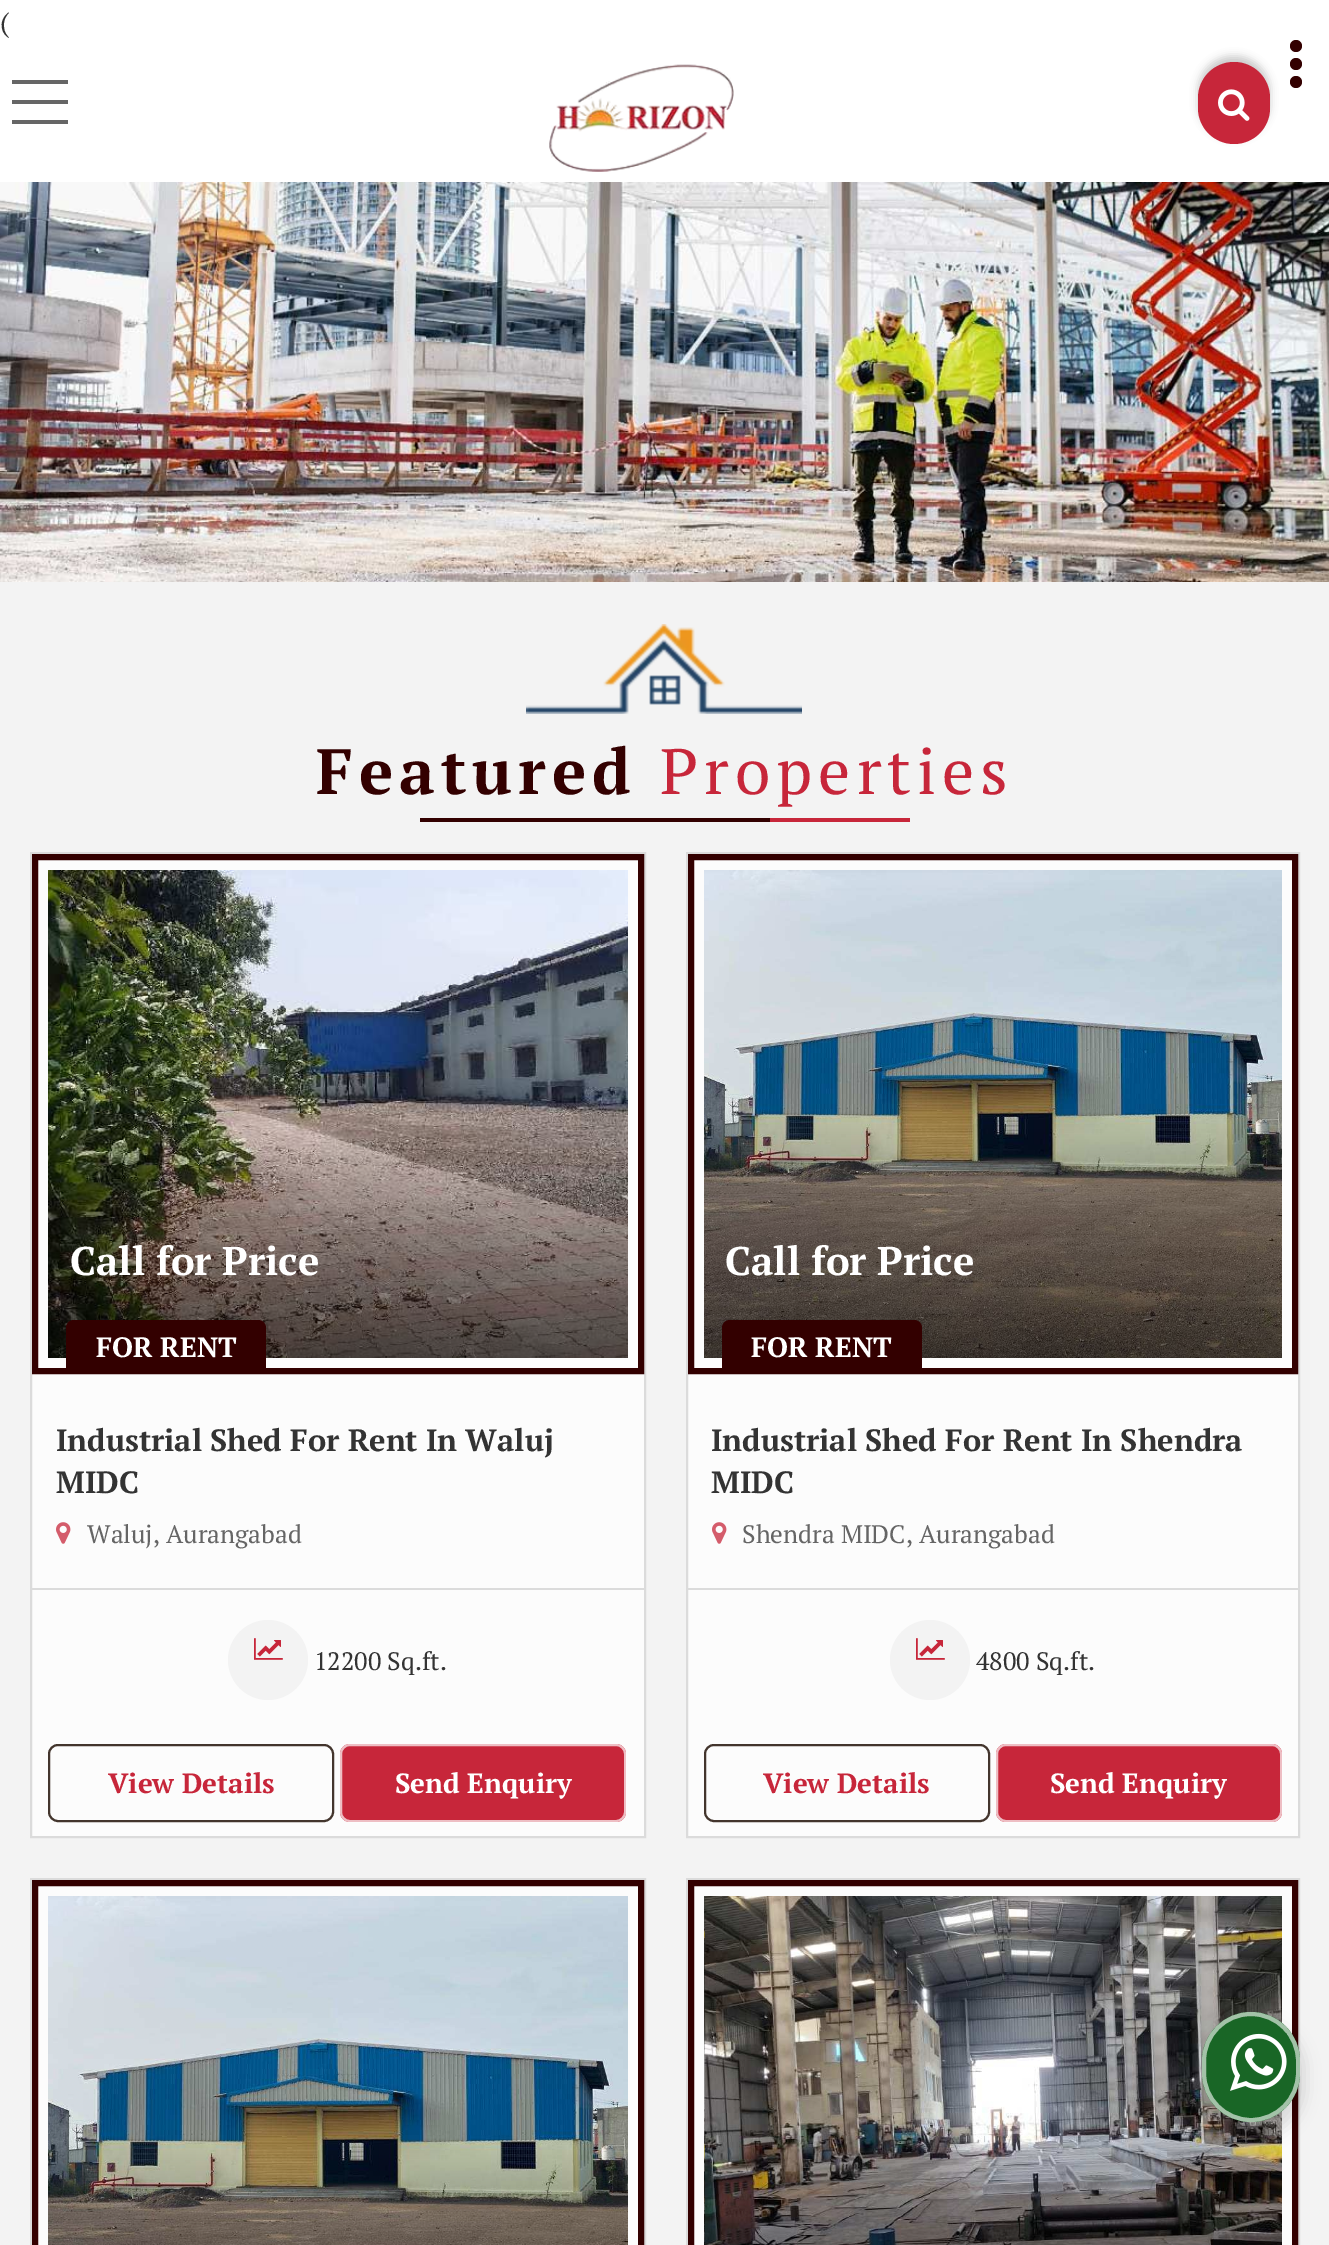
%!PS
<< /PageSize [1329 2245] /PageUsesTransparency true >> setpagedevice
/rgb { dup -16 bitshift 255 div exch dup -8 bitshift 255 and 255 div exch 255 and 255 div setrgbcolor } def
/font { [ exch dup neg 0 0 3 -1 roll 0 0 ] selectfont } def
/text { moveto show } def
/alpha { dup .setfillconstantalpha .setstrokeconstantalpha } def
/circle { newpath 0 360 arc closepath } def
/roundrect { 5 dict begin { /r /h /w /y /x } { exch def } forall
  x r add y moveto x w add y 2 copy h add r arct x w add y h add x 1 index r arct
  x y h add x y r arct x y 2 copy exch w add exch r arct closepath end } def
/shadow { 12 dict begin { /a /b /q /h /w /y /x } { exch def } forall gsave /was 0 def
  9 -2 -9 { dup b mul 4 div /e exch def 1 sub .425 mul 2.718 exch exp 1 add a .99 .min exch div /now exch def
    1 1 now sub 1 was sub div sub alpha /was now def
    w h .min e 2 mul add 0 gt { x e sub y e sub w e 2 mul add h e 2 mul add
      q e add b .6 mul add w h .min 2 div e add .min 0 .max roundrect fill } if } for grestore end } def
/picture { 5 dict begin { /h /w /y /x /name } { exch def } forall
  gsave x y translate w h scale
  w h 8 [w 0 0 h 0 0] name (r) file false 3 colorimage grestore end } def
0 .pushpdf14devicefilter
0 2245 translate 1 -1 scale
4 setmiterlimit
/s1 { /PTSerif-Regular 28 font 16#333333 rgb } def
/s2 { /PTSerif-Bold 40 font 16#FFFFFF rgb } def
/s3 { /PTSerif-Bold 28 font 16#FFFFFF rgb } def
/s4 { /PTSerif-Bold 30.75 font 16#333333 rgb } def
/s5 { /PTSerif-Regular 25.25 font 16#656565 rgb } def
/s6 { /PTSerif-Regular 25.25 font 16#333333 rgb } def
/s7 { /PTSerif-Bold 27.75 font 16#C7263A rgb } def
/s8 { /PTSerif-Bold 27.75 font 16#FFFFFF rgb } def
16#FFFFFF rgb
0 0 1329 2245 rectfill
s1
(\() 0 32 text
16#330000 rgb
1296 64 6 circle fill
1296 46 6 circle fill
1296 82 6 circle fill
16#666666 rgb
12 100 56 4 rectfill
12 80 56 4 rectfill
12 120 56 4 rectfill
16#000000 rgb
1198 56 72 82 36 4 0.2 shadow
16#C7263A rgb
1198 62 72 82 36 roundrect fill
(pic1.raw) 1218 89 32 32 picture
(pic2.raw) 549 64 185 108 picture
(pic3.raw) 0 182 1329 400 picture
16#F3F3F3 rgb
0 582 1329 1663 rectfill
(pic4.raw) 526 624 276 90 picture
/PTSerif-Bold 64 font
16#330000 rgb
316 794 moveto 6 0 (Featured) ashow
/PTSerif-Regular 64 font
16#C7263A rgb
660 794 moveto 6 0 (Properties) ashow
16#330000 rgb
420 818 350 4 rectfill
16#C7263A rgb
770 818 140 4 rectfill
16#FCFCFC rgb
32 860 612 976 rectfill
16#DBDBDB rgb
2 setlinewidth
31 853 614 984 rectstroke
16#330000 rgb
6 setlinewidth
35 857 606 514 rectstroke
(pic5.raw) 48 870 580 488 picture
s2
(Call for Price) 70 1275 text
16#330000 rgb
74 1320 moveto 258 1320 lineto 262.5 1320 266 1323.5 266 1328 curveto 266 1374 lineto 66 1374 lineto 66 1328 lineto 66 1323.5 69.5 1320 74 1320 curveto closepath fill
s3
(FOR RENT) 96 1357 text
s4
(Industrial Shed For Rent In Waluj) 56 1451 text
(MIDC) 56 1493 text
(pic6.raw) 56 1522 15 22 picture
s5
(Waluj, Aurangabad) 87 1543 text
16#DBDBDB rgb
32 1588 612 2 rectfill
16#F3F3F3 rgb
268 1660 40 circle fill
(pic7.raw) 254 1638 29 22 picture
s6
(12200 Sq.ft.) 314 1670 text
16#43352D rgb
2 setlinewidth
49 1745 284 76 9 roundrect stroke
s7
(View Details) 108 1793 text
340 1744 286 78 10 roundrect fill
0.7 alpha
16#FFFFFF rgb
341 1745 284 76 9 roundrect stroke
1 alpha
(Send Enquiry) 395 1793 text
16#FCFCFC rgb
688 860 610 976 rectfill
16#DBDBDB rgb
687 853 612 984 rectstroke
16#330000 rgb
6 setlinewidth
691 857 604 514 rectstroke
(pic8.raw) 704 870 578 488 picture
s2
(Call for Price) 725 1275 text
16#330000 rgb
730 1320 moveto 914 1320 lineto 918.5 1320 922 1323.5 922 1328 curveto 922 1374 lineto 722 1374 lineto 722 1328 lineto 722 1323.5 725.5 1320 730 1320 curveto closepath fill
s3
(FOR RENT) 751 1357 text
s4
(Industrial Shed For Rent In Shendra) 711 1451 text
(MIDC) 711 1493 text
(pic6.raw) 712 1522 15 22 picture
s5
(Shendra MIDC, Aurangabad) 742 1543 text
16#DBDBDB rgb
688 1588 610 2 rectfill
16#F3F3F3 rgb
930 1660 40 circle fill
(pic7.raw) 916 1638 29 22 picture
s6
(4800 Sq.ft.) 976 1670 text
16#43352D rgb
2 setlinewidth
705 1745 284 76 9 roundrect stroke
s7
(View Details) 763 1793 text
996 1744 286 78 10 roundrect fill
0.7 alpha
16#FFFFFF rgb
997 1745 284 76 9 roundrect stroke
1 alpha
(Send Enquiry) 1050 1793 text
16#FCFCFC rgb
38 1886 600 359 rectfill
16#DBDBDB rgb
31 1879 614 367 rectstroke
16#330000 rgb
6 setlinewidth
35 1883 606 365 rectstroke
(pic9.raw) 48 1896 580 349 picture
16#FCFCFC rgb
694 1886 598 359 rectfill
16#DBDBDB rgb
2 setlinewidth
687 1879 612 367 rectstroke
16#330000 rgb
6 setlinewidth
691 1883 604 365 rectstroke
(pic10.raw) 704 1896 578 349 picture
16#000000 rgb
1198 2020 106 118 53 8 0.14 shadow
16#196626 rgb
1202 2012 98 110 49 roundrect fill
0.6 alpha
16#FFFFFF rgb
4 setlinewidth
1204 2014 94 106 47 roundrect stroke
1 alpha
(pic11.raw) 1230 2033 57 58 picture
.poppdf14devicefilter showpage
